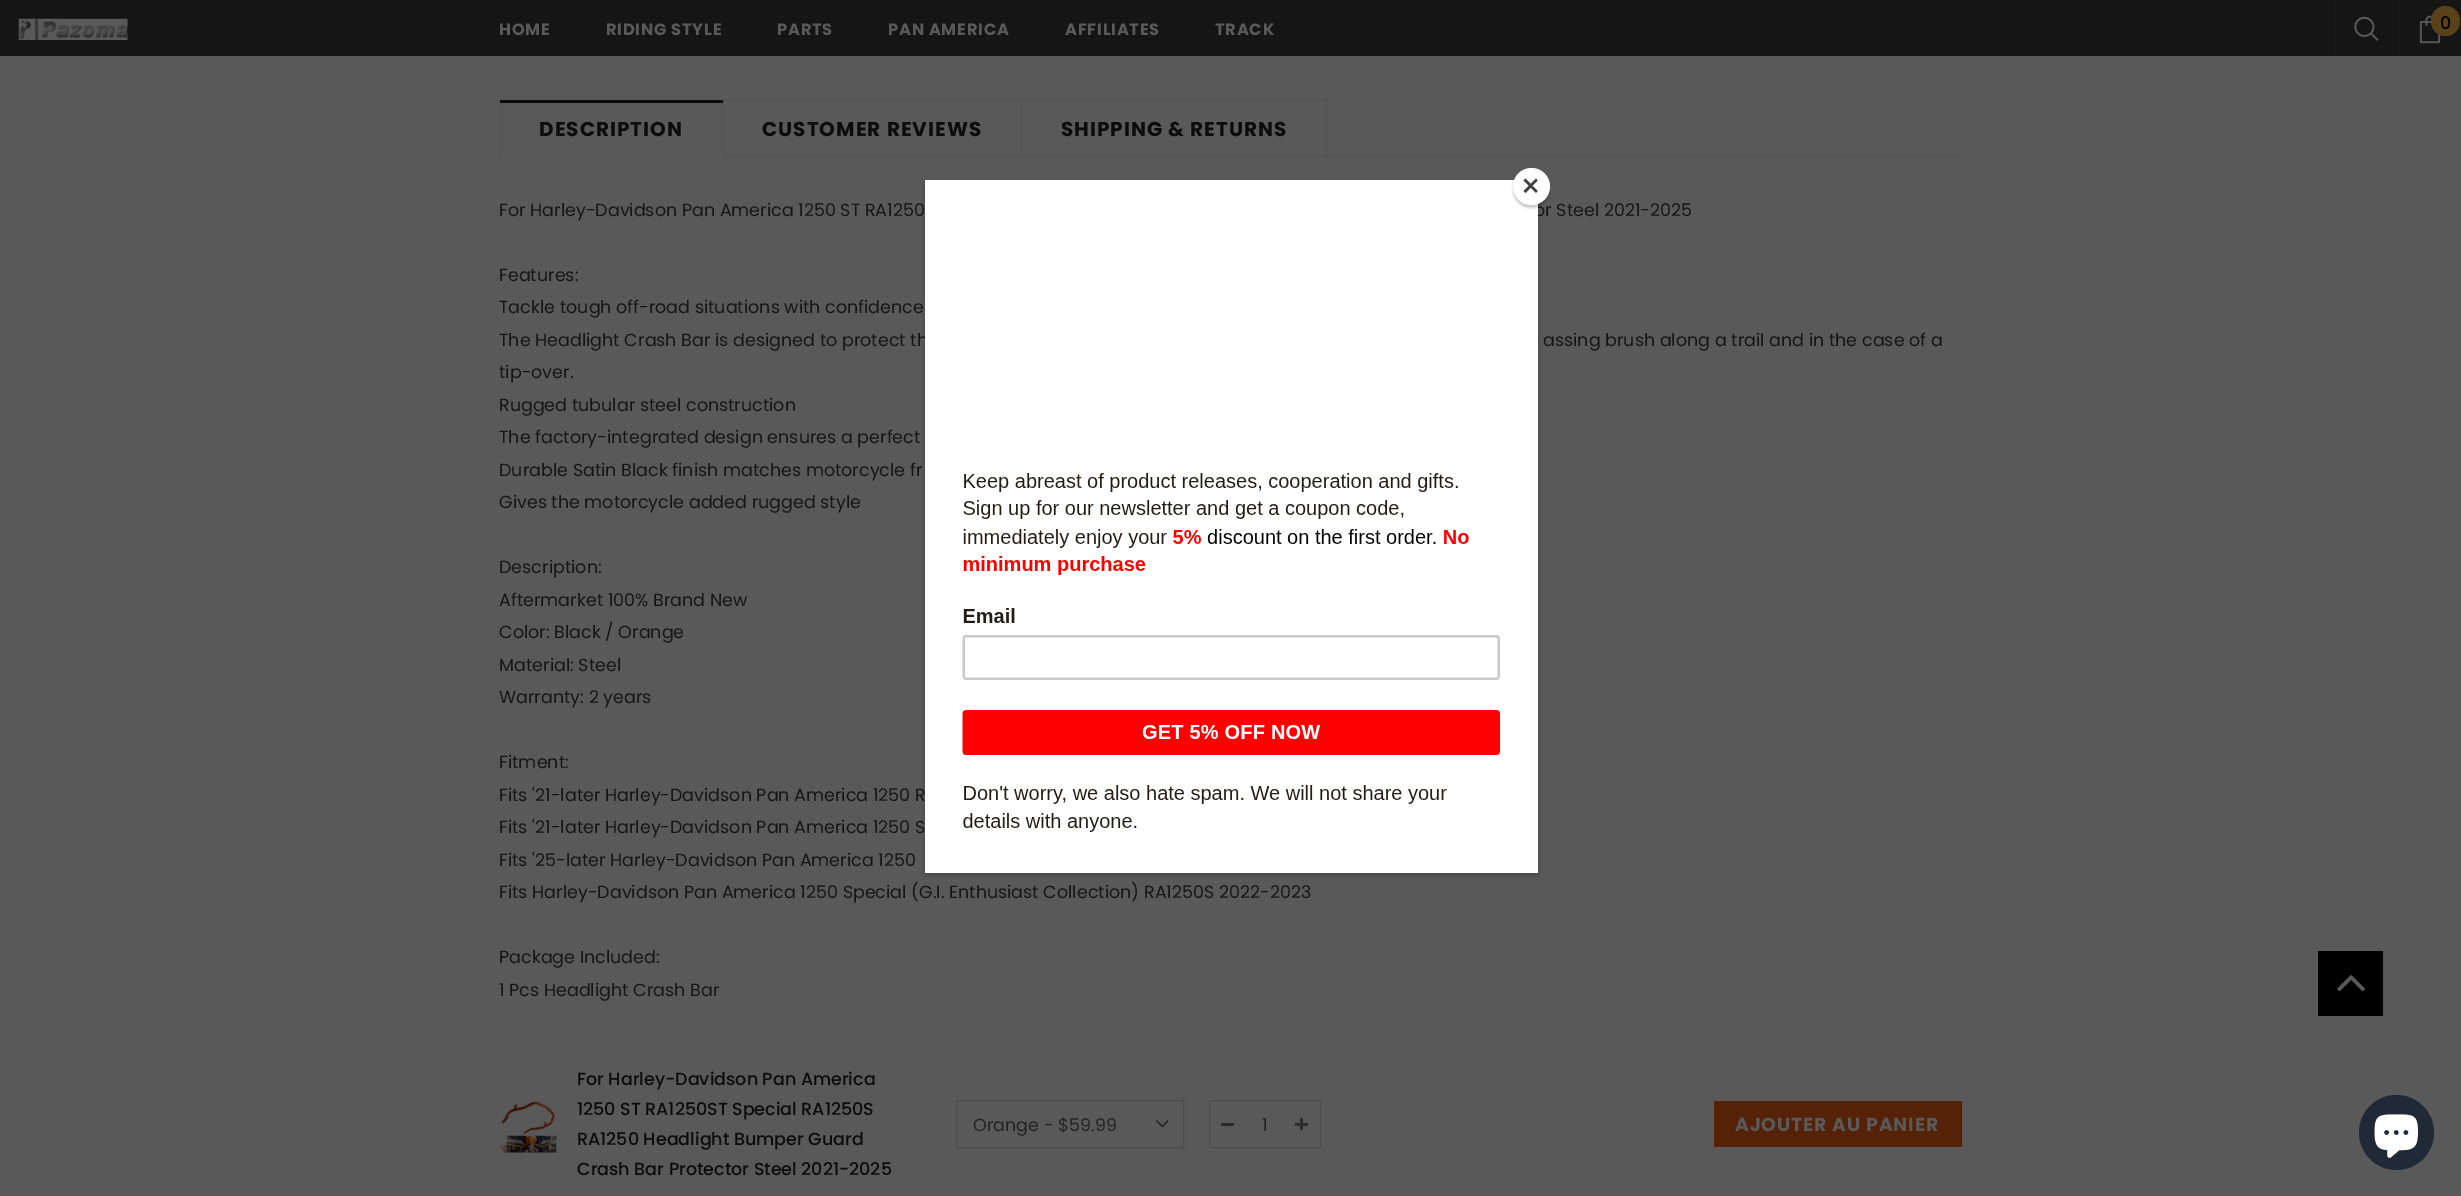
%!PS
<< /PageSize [2461 1196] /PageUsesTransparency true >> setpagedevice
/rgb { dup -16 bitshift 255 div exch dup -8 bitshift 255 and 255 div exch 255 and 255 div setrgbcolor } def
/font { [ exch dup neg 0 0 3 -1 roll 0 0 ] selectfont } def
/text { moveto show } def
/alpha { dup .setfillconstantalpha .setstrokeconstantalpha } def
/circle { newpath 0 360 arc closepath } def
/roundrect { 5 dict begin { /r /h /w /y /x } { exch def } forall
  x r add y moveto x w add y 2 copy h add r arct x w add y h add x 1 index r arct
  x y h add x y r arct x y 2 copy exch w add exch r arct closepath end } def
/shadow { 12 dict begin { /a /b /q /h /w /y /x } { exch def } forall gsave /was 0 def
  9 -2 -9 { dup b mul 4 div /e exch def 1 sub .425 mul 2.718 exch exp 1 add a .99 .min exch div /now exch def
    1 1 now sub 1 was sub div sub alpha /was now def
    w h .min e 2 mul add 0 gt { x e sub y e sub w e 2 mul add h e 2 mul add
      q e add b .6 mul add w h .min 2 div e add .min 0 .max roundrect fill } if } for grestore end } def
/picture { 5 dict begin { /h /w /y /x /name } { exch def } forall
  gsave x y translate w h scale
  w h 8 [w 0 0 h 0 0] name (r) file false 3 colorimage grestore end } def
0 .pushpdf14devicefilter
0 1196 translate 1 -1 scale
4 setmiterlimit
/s1 { /Poppins-Medium 17.5 font 16#010101 rgb } def
/s2 { /Poppins-Regular 17.5 font 16#161616 rgb } def
/s3 { /Poppins-Medium 17.5 font 16#0C0C0C rgb } def
/s4 { /Poppins-Regular 17.5 font 16#232323 rgb } def
16#595959 rgb
0 0 2461 1196 rectfill
16#151515 rgb
0 0 2461 56 rectfill
(pic1.raw) 18 18 110 22 picture
/Poppins-Bold 16.25 font
16#595959 rgb
499 35 moveto 0.75 0 (HOME) ashow
606 35 moveto 0.75 0 (RIDING STYLE) ashow
777 35 moveto 0.75 0 (PARTS) ashow
888 35 moveto 0.75 0 (PAN AMERICA) ashow
1065 35 moveto 0.75 0 (AFFILIATES) ashow
1215 35 moveto 0.75 0 (TRACK) ashow
16#1F1F1F rgb
2334 0 1 56 rectfill
(pic2.raw) 2354 16 25 25 picture
2398 0 1 56 rectfill
(pic3.raw) 2419 15 22 29 picture
16#59411A rgb
2431 6 29 30 14.5 roundrect fill
s1
(0) 2440 29 text
16#515151 rgb
500 155 1463 1 rectfill
500 100 1 55 rectfill
16#0C0C0C rgb
500 100 224 3 rectfill
/Poppins-Bold 20 font
539 136 moveto 1 0 (DESCRIPTION) ashow
16#595959 rgb
501 155 222 1 rectfill
16#515151 rgb
723 100 605 1 rectfill
723 100 1 55 rectfill
16#0C0C0C rgb
762 136 moveto 1 0 (CUSTOMER REVIEWS) ashow
16#515151 rgb
1326 100 1 55 rectfill
1021 100 1 55 rectfill
16#0C0C0C rgb
1061 136 moveto 1 0 (SHIPPING & RETURNS) ashow
s2
(For Harley-Davidson Pan America 1250 ST RA1250) 499 216 text
(or Steel 2021-2025) 1534 216 text
(Features:) 499 281 text
(Tackle tough off-road situations with confidence) 499 313 text
(The Headlight Crash Bar is designed to protect th) 499 346 text
(assing brush along a trail and in the case of a) 1543 346 text
(tip-over.) 499 378 text
(Rugged tubular steel construction) 499 411 text
(The factory-integrated design ensures a perfect) 499 443 text
(Durable Satin Black finish matches motorcycle fr) 499 476 text
(Gives the motorcycle added rugged style) 499 508 text
(Description:) 499 573 text
(Aftermarket 100% Brand New) 499 606 text
(Color: Black / Orange) 499 638 text
(Material: Steel) 499 671 text
(Warranty: 2 years) 499 703 text
(Fitment:) 499 768 text
(Fits '21-later Harley-Davidson Pan America 1250 R) 499 801 text
(Fits '21-later Harley-Davidson Pan America 1250 S) 499 833 text
(Fits '25-later Harley-Davidson Pan America 1250) 499 866 text
(Fits Harley-Davidson Pan America 1250 Special \(G.I. Enthusiast Collection\) RA1250S 2022-2023) 499 898 text
(Package Included:) 499 963 text
(1 Pcs Headlight Crash Bar) 499 996 text
(pic4.raw) 500 1100 57 53 picture
s3
(For Harley-Davidson Pan America) 577 1085 text
(1250 ST RA1250ST Special RA1250S) 577 1115 text
(RA1250 Headlight Bumper Guard) 577 1145 text
(Crash Bar Protector Steel 2021-2025) 577 1175 text
16#4C4C4C rgb
956.5 1100.5 227 47 rectstroke
s4
(Orange - $59.99) 973 1131 text
(pic5.raw) 1156 1120 13 8 picture
16#4C4C4C rgb
1209.5 1100.5 111 47 rectstroke
16#2B2B2B rgb
1221 1123 13 3 rectfill
s4
(1) 1262 1131 text
16#2B2B2B rgb
1295 1123 13 3 rectfill
1300 1118 3 12 rectfill
16#552107 rgb
1714 1101 248 46 rectfill
/Poppins-Bold 18.75 font
16#595959 rgb
1735 1131 moveto 0.9 0 (AJOUTER AU PANIER) ashow
16#000000 rgb
2318 951 65 65 rectfill
(pic6.raw) 2337 975 28 17 picture
925 183 613 692 0 2.5 0.2 shadow
(pic7.raw) 925 180 613 693 picture
1513 170 37 38 18.5 1 0.2 shadow
16#FFFFFF rgb
1531.5 186.5 18.5 circle fill
16#414141 rgb
1536 178.5 moveto 1537.5 180.5 lineto 1525.5 193 lineto 1523.5 191 lineto closepath fill
1523.5 180.5 moveto 1525.5 178.5 lineto 1537.5 191 lineto 1536 193 lineto closepath fill
16#202A36 rgb
2396.5 1132.5 37.5 circle fill
(pic8.raw) 2374 1114 44 44 picture
.poppdf14devicefilter showpage
